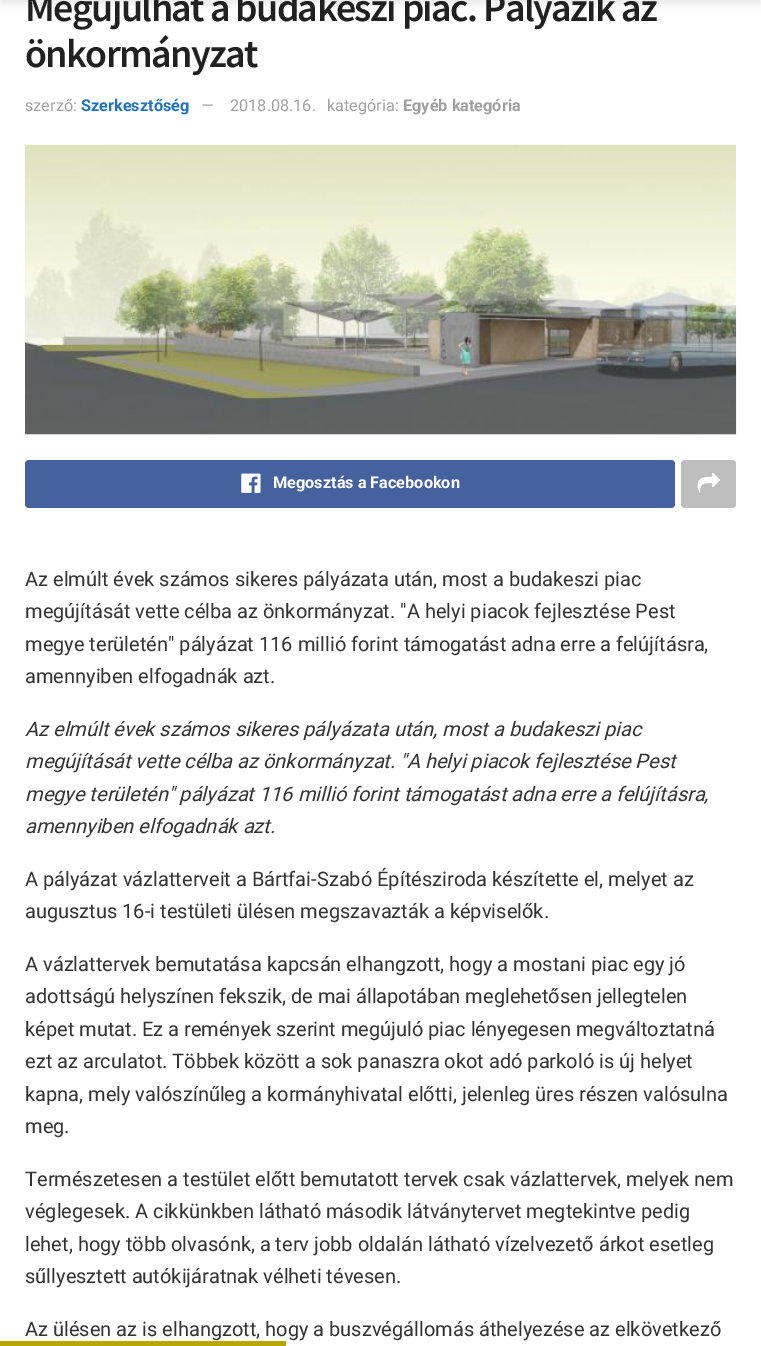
%!PS
<< /PageSize [761 1346] /PageUsesTransparency true >> setpagedevice
/rgb { dup -16 bitshift 255 div exch dup -8 bitshift 255 and 255 div exch 255 and 255 div setrgbcolor } def
/font { [ exch dup neg 0 0 3 -1 roll 0 0 ] selectfont } def
/text { moveto show } def
/alpha { dup .setfillconstantalpha .setstrokeconstantalpha } def
/roundrect { 5 dict begin { /r /h /w /y /x } { exch def } forall
  x r add y moveto x w add y 2 copy h add r arct x w add y h add x 1 index r arct
  x y h add x y r arct x y 2 copy exch w add exch r arct closepath end } def
/shadow { 12 dict begin { /a /b /q /h /w /y /x } { exch def } forall gsave /was 0 def
  9 -2 -9 { dup b mul 4 div /e exch def 1 sub .425 mul 2.718 exch exp 1 add a .99 .min exch div /now exch def
    1 1 now sub 1 was sub div sub alpha /was now def
    w h .min e 2 mul add 0 gt { x e sub y e sub w e 2 mul add h e 2 mul add
      q e add b .6 mul add w h .min 2 div e add .min 0 .max roundrect fill } if } for grestore end } def
/picture { 5 dict begin { /h /w /y /x /name } { exch def } forall
  gsave x y translate w h scale
  w h 8 [w 0 0 h 0 0] name (r) file false 3 colorimage grestore end } def
0 .pushpdf14devicefilter
0 1346 translate 1 -1 scale
4 setmiterlimit
/s1 { /Roboto-Regular 16.25 font 16#A0A0A0 rgb } def
/s2 { /Roboto-Bold 16.25 font 16#1E73BE rgb } def
/s3 { /Roboto-Bold 16.25 font 16#A0A0A0 rgb } def
/s4 { /Roboto-Bold 16.25 font 16#FFFFFF rgb } def
/s5 { /Roboto-Regular 20 font 16#333333 rgb } def
/s6 { /Roboto-Italic 20 font 16#333333 rgb } def
16#FFFFFF rgb
0 0 761 1346 rectfill
16#000000 rgb
0 -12 761 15 0 4 0.1 shadow
/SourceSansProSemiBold-SemiBold 40 font
16#212121 rgb
25 21 moveto -1.6 0 (Megújulhat a budakeszi piac. Pályázik az) ashow
25 67 moveto -1.6 0 (önkormányzat) ashow
s1
(szerző:) 25 111 text
s2
(Szerkesztőség) 81 111 text
s1
(—) 201 111 text
(2018.08.16.) 230 111 text
(kategória:) 327 111 text
s3
(Egyéb kategória) 403 111 text
16#F7F7F7 rgb
25 434 711 1 rectfill
(pic1.raw) 25 144 712 291 picture
16#45629F rgb
25 460 650 48 4 roundrect fill
(pic2.raw) 241 473 20 20 picture
s4
(Megosztás a Facebookon) 273 488 text
16#BDBDBD rgb
681 460 55 48 4 roundrect fill
(pic3.raw) 697 472 23 21 picture
s5
(Az elmúlt évek számos sikeres pályázata után, most a budakeszi piac) 25 586 text
(megújítását vette célba az önkormányzat. "A helyi piacok fejlesztése Pest) 25 618 text
(megye területén" pályázat 116 millió forint támogatást adna erre a felújításra,) 25 651 text
(amennyiben elfogadnák azt.) 25 683 text
s6
(Az elmúlt évek számos sikeres pályázata után, most a budakeszi piac) 25 736 text
(megújítását vette célba az önkormányzat. "A helyi piacok fejlesztése Pest) 25 768 text
(megye területén" pályázat 116 millió forint támogatást adna erre a felújításra,) 25 801 text
(amennyiben elfogadnák azt.) 25 833 text
s5
(A pályázat vázlatterveit a Bártfai-Szabó Építésziroda készítette el, melyet az) 25 886 text
(augusztus 16-i testületi ülésen megszavazták a képviselők.) 25 918 text
(A vázlattervek bemutatása kapcsán elhangzott, hogy a mostani piac egy jó) 25 971 text
(adottságú helyszínen fekszik, de mai állapotában meglehetősen jellegtelen) 25 1003 text
(képet mutat. Ez a remények szerint megújuló piac lényegesen megváltoztatná) 25 1036 text
(ezt az arculatot. Többek között a sok panaszra okot adó parkoló is új helyet) 25 1068 text
(kapna, mely valószínűleg a kormányhivatal előtti, jelenleg üres részen valósulna) 25 1101 text
(meg.) 25 1133 text
(Természetesen a testület előtt bemutatott tervek csak vázlattervek, melyek nem) 25 1186 text
(véglegesek. A cikkünkben látható második látványtervet megtekintve pedig) 25 1218 text
(lehet, hogy több olvasónk, a terv jobb oldalán látható vízelvezető árkot esetleg) 25 1251 text
(sűllyesztett autókijáratnak vélheti tévesen.) 25 1283 text
(Az ülésen az is elhangzott, hogy a buszvégállomás áthelyezése az elkövetkező) 25 1336 text
16#B7A801 rgb
0 1341 286 5 rectfill
.poppdf14devicefilter showpage
